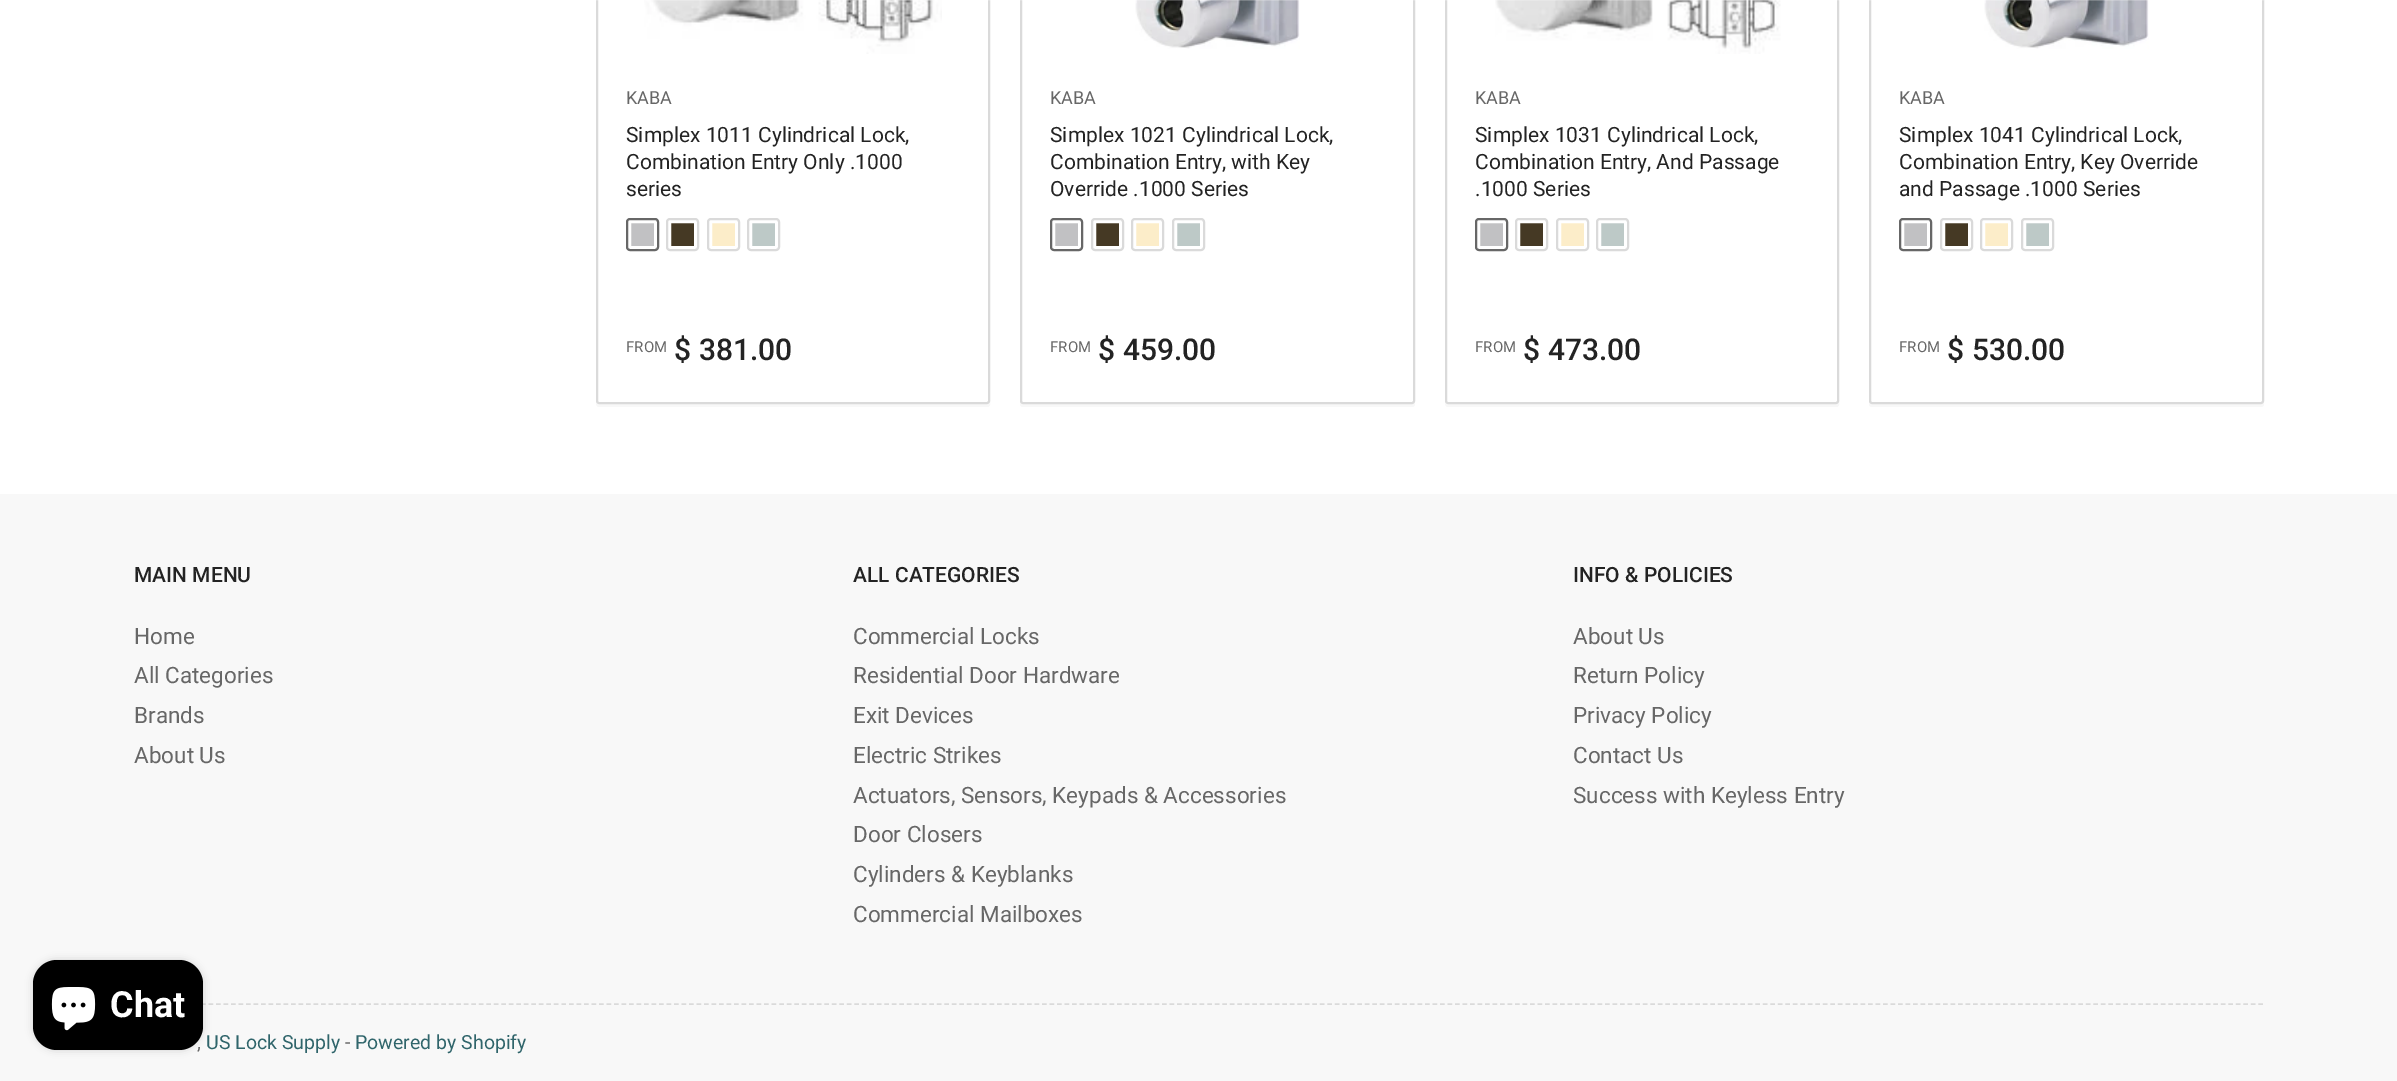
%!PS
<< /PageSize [2397 1081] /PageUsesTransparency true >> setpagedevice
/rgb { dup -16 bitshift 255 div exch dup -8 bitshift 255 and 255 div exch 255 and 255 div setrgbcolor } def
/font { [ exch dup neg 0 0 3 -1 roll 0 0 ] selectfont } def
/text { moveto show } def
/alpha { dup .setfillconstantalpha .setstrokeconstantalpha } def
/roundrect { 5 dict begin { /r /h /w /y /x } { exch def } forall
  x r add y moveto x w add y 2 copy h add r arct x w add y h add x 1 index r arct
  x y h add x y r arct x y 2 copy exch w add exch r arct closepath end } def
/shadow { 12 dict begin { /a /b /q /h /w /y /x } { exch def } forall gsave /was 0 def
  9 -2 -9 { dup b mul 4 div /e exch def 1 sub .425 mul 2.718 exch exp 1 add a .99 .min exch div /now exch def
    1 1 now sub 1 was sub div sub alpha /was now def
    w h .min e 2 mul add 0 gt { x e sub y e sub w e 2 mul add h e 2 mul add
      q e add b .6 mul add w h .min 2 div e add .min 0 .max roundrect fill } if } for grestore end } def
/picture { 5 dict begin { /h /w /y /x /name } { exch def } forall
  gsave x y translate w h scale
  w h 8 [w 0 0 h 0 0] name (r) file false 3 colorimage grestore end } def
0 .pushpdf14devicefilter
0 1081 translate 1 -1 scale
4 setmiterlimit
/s1 { /Roboto-Regular 18 font 16#676767 rgb } def
/s2 { /Roboto-Regular 21 font 16#232323 rgb } def
/s3 { /Roboto-Regular 15 font 16#676767 rgb } def
/s4 { /Roboto-Medium 30 font 16#232323 rgb } def
/s5 { /Roboto-Medium 21 font 16#232323 rgb } def
/s6 { /Roboto-Regular 22.5 font 16#676767 rgb } def
/s7 { /Roboto-Regular 19.5 font 16#30656B rgb } def
/s8 { /Roboto-Regular 19.5 font 16#676767 rgb } def
/s9 { /Roboto-Bold 36 font 16#FFFFFF rgb } def
16#FFFFFF rgb
0 0 2397 1081 rectfill
16#F8F8F8 rgb
596 402 moveto 596 404 596 407 599 407 curveto 988 407 lineto 991 406 990 403 990 400 curveto 990 402 989 404 987 404 curveto 598 404 lineto 597 404 597 403 596 402 curveto closepath fill
16#DADADA rgb
2 setlinewidth
597 -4 392 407 2 roundrect stroke
(pic1.raw) 644 0 298 54 picture
16#F8F8F8 rgb
1020 400 moveto 1020 404 lineto 1020 406 1021 407 1023 407 curveto 1412 407 lineto 1414 407 1415 406 1415 404 curveto 1415 -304 lineto 1414 -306 lineto 1414 400 lineto 1414 402 1413 404 1412 404 curveto 1023 404 lineto 1021 404 1020 402 1020 400 curveto closepath fill
16#FFFFFF rgb
1021 -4 393 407 2 roundrect gsave fill grestore
16#DADADA rgb
stroke
(pic2.raw) 1135 0 165 49 picture
16#F8F8F8 rgb
1445 402 moveto 1445 404 1445 407 1448 407 curveto 1837 407 lineto 1840 406 1839 403 1839 400 curveto 1839 402 1838 404 1836 404 curveto 1448 404 lineto 1446 404 1446 403 1445 402 curveto closepath fill
16#DADADA rgb
1446 -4 392 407 2 roundrect stroke
(pic3.raw) 1495 0 286 54 picture
16#F8F8F8 rgb
1869 400 moveto 1869 404 lineto 1869 406 1870 407 1872 407 curveto 2261 407 lineto 2263 407 2264 406 2264 404 curveto 2264 -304 lineto 2264 -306 lineto 2264 400 lineto 2264 402 2262 404 2260 404 curveto 1872 404 lineto 1870 404 1869 402 1869 400 curveto closepath fill
16#FFFFFF rgb
1870 -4 393 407 2 roundrect gsave fill grestore
16#DADADA rgb
stroke
(pic2.raw) 1984 0 165 49 picture
0.2 alpha
16#FFFFFF rgb
596 0 1668 1 rectfill
1 alpha
s1
(KABA) 626 104 text
s2
(Simplex 1011 Cylindrical Lock,) 626 142 text
(Combination Entry Only .1000) 626 169 text
(series) 626 196 text
16#C1C1C3 rgb
628.5 220.5 28 28 1.5 roundrect gsave fill grestore
16#FFFFFF rgb
5 setlinewidth
stroke
16#676767 rgb
2 setlinewidth
627 219 31 31 3 roundrect stroke
16#453924 rgb
668.5 220.5 28 28 1.5 roundrect gsave fill grestore
16#FFFFFF rgb
5 setlinewidth
stroke
16#DADADA rgb
2 setlinewidth
667 219 31 31 3 roundrect stroke
16#FCEDC9 rgb
709.5 220.5 28 28 1.5 roundrect gsave fill grestore
16#FFFFFF rgb
5 setlinewidth
stroke
16#DADADA rgb
2 setlinewidth
708 219 31 31 3 roundrect stroke
16#BDC9C7 rgb
749.5 220.5 28 28 1.5 roundrect gsave fill grestore
16#FFFFFF rgb
5 setlinewidth
stroke
16#DADADA rgb
2 setlinewidth
748 219 31 31 3 roundrect stroke
s3
(FROM) 626 352 text
s4
($ 381.00) 674 360 text
s1
(KABA) 1050 104 text
s2
(Simplex 1021 Cylindrical Lock,) 1050 142 text
(Combination Entry, with Key) 1050 169 text
(Override .1000 Series) 1050 196 text
16#C1C1C3 rgb
1052.5 220.5 28 28 1.5 roundrect gsave fill grestore
16#FFFFFF rgb
5 setlinewidth
stroke
16#676767 rgb
2 setlinewidth
1051 219 31 31 3 roundrect stroke
16#453924 rgb
1093.5 220.5 28 28 1.5 roundrect gsave fill grestore
16#FFFFFF rgb
5 setlinewidth
stroke
16#DADADA rgb
2 setlinewidth
1092 219 31 31 3 roundrect stroke
16#FCEDC9 rgb
1133.5 220.5 28 28 1.5 roundrect gsave fill grestore
16#FFFFFF rgb
5 setlinewidth
stroke
16#DADADA rgb
2 setlinewidth
1132 219 31 31 3 roundrect stroke
16#BDC9C7 rgb
1174.5 220.5 28 28 1.5 roundrect gsave fill grestore
16#FFFFFF rgb
5 setlinewidth
stroke
16#DADADA rgb
2 setlinewidth
1173 219 31 31 3 roundrect stroke
s3
(FROM) 1050 352 text
s4
($ 459.00) 1098 360 text
s1
(KABA) 1475 104 text
s2
(Simplex 1031 Cylindrical Lock,) 1475 142 text
(Combination Entry, And Passage) 1475 169 text
(.1000 Series) 1475 196 text
16#C1C1C3 rgb
1477.5 220.5 28 28 1.5 roundrect gsave fill grestore
16#FFFFFF rgb
5 setlinewidth
stroke
16#676767 rgb
2 setlinewidth
1476 219 31 31 3 roundrect stroke
16#453924 rgb
1517.5 220.5 28 28 1.5 roundrect gsave fill grestore
16#FFFFFF rgb
5 setlinewidth
stroke
16#DADADA rgb
2 setlinewidth
1516 219 31 31 3 roundrect stroke
16#FCEDC9 rgb
1558.5 220.5 28 28 1.5 roundrect gsave fill grestore
16#FFFFFF rgb
5 setlinewidth
stroke
16#DADADA rgb
2 setlinewidth
1557 219 31 31 3 roundrect stroke
16#BDC9C7 rgb
1598.5 220.5 28 28 1.5 roundrect gsave fill grestore
16#FFFFFF rgb
5 setlinewidth
stroke
16#DADADA rgb
2 setlinewidth
1597 219 31 31 3 roundrect stroke
s3
(FROM) 1475 352 text
s4
($ 473.00) 1523 360 text
s1
(KABA) 1899 104 text
s2
(Simplex 1041 Cylindrical Lock,) 1899 142 text
(Combination Entry, Key Override) 1899 169 text
(and Passage .1000 Series) 1899 196 text
16#C1C1C3 rgb
1901.5 220.5 28 28 1.5 roundrect gsave fill grestore
16#FFFFFF rgb
5 setlinewidth
stroke
16#676767 rgb
2 setlinewidth
1900 219 31 31 3 roundrect stroke
16#453924 rgb
1942.5 220.5 28 28 1.5 roundrect gsave fill grestore
16#FFFFFF rgb
5 setlinewidth
stroke
16#DADADA rgb
2 setlinewidth
1941 219 31 31 3 roundrect stroke
16#FCEDC9 rgb
1982.5 220.5 28 28 1.5 roundrect gsave fill grestore
16#FFFFFF rgb
5 setlinewidth
stroke
16#DADADA rgb
2 setlinewidth
1981 219 31 31 3 roundrect stroke
16#BDC9C7 rgb
2023.5 220.5 28 28 1.5 roundrect gsave fill grestore
16#FFFFFF rgb
5 setlinewidth
stroke
16#DADADA rgb
2 setlinewidth
2022 219 31 31 3 roundrect stroke
s3
(FROM) 1899 352 text
s4
($ 530.00) 1947 360 text
16#F8F8F8 rgb
0 494 2397 587 rectfill
s5
(MAIN MENU) 134 582 text
s6
(Home) 134 644 text
(All Categories) 134 683 text
(Brands) 134 723 text
(About Us) 134 763 text
s5
(ALL CATEGORIES) 853 582 text
s6
(Commercial Locks) 853 644 text
(Residential Door Hardware) 853 683 text
(Exit Devices) 853 723 text
(Electric Strikes) 853 763 text
(Actuators, Sensors, Keypads & Accessories) 853 803 text
(Door Closers) 853 842 text
(Cylinders & Keyblanks) 853 882 text
(Commercial Mailboxes) 853 922 text
s5
(INFO & POLICIES) 1573 582 text
s6
(About Us) 1573 644 text
(Return Policy) 1573 683 text
(Privacy Policy) 1573 723 text
(Contact Us) 1573 763 text
(Success with Keyless Entry) 1573 803 text
16#DADADA rgb
1.5 setlinewidth
[4.5 3.01] 0 setdash
133.5 1004 moveto 2263.5 1004 lineto stroke
s7
(US Lock Supply) 206 1049 text
s8
(-) 345 1049 text
s7
(Powered by Shopify) 355 1049 text
s8
(,) 197 1049 text
16#000000 rgb
33 960 170 90 24 4 0.15 shadow
33 960 170 90 24 roundrect fill
(pic4.raw) 51 987 45 44 picture
s9
(Chat) 110 1017 text
.poppdf14devicefilter showpage
